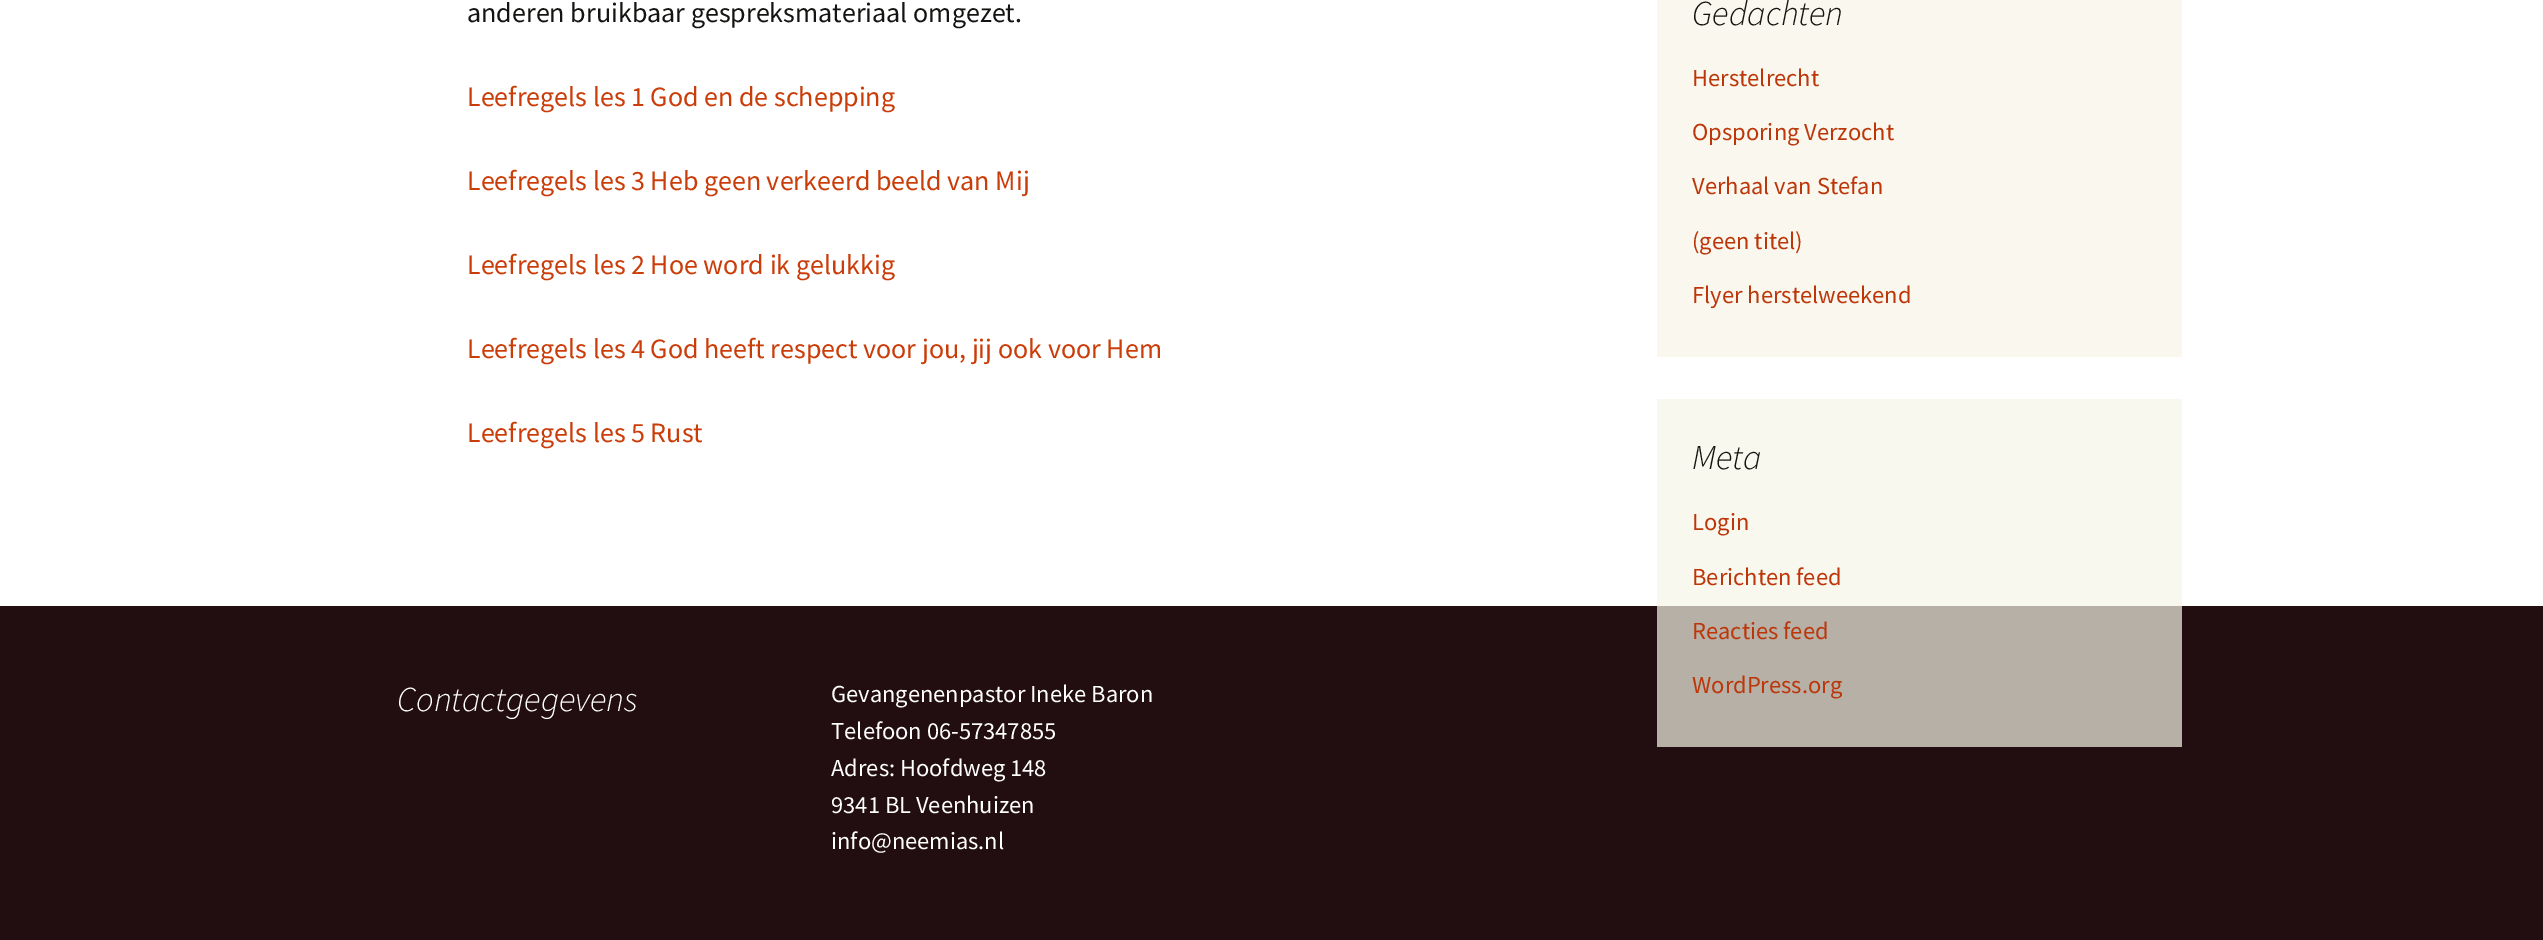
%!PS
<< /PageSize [2543 940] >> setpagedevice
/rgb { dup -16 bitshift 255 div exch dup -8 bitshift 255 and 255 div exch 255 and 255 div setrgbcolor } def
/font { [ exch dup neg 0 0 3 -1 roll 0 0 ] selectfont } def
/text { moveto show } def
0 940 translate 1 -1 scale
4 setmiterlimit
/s1 { /SourceSansPro-Regular 28 font 16#141412 rgb } def
/s2 { /SourceSansPro-Regular 28 font 16#CA3C08 rgb } def
/s3 { /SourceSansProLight-LightItalic 35 font 16#141412 rgb } def
/s4 { /SourceSansPro-Regular 24.5 font 16#BC360A rgb } def
/s5 { /SourceSansProLight-LightItalic 35 font 16#FFFFFF rgb } def
/s6 { /SourceSansPro-Regular 24.5 font 16#FFFFFF rgb } def
16#FFFFFF rgb
0 0 2543 940 rectfill
16#F9F8EE rgb
1657 399 525 207 rectfill
s1
(anderen bruikbaar gespreksmateriaal omgezet.) 467 22 text
s2
(Leefregels les 1 God en de schepping) 467 106 text
(Leefregels les 3 Heb geen verkeerd beeld van Mij) 467 190 text
(Leefregels les 2 Hoe word ik gelukkig) 467 274 text
(Leefregels les 4 God heeft respect voor jou, jij ook voor Hem) 467 358 text
(Leefregels les 5 Rust) 467 442 text
16#FAF8EE rgb
1657 0 525 357 rectfill
s3
(Gedachten) 1692 25 text
s4
(Herstelrecht) 1692 86 text
(Opsporing Verzocht) 1692 140 text
(Verhaal van Stefan) 1692 194 text
(\(geen titel\)) 1692 249 text
(Flyer herstelweekend) 1692 303 text
s3
(Meta) 1692 469 text
s4
(Login) 1692 530 text
(Berichten feed) 1692 585 text
16#220E10 rgb
0 606 2543 334 rectfill
16#B7B0A7 rgb
1657 606 525 141 rectfill
s4
(Reacties feed) 1692 639 text
(WordPress.org) 1692 693 text
s5
(Contactgegevens) 397 711 text
s6
(Gevangenenpastor Ineke Baron) 831 702 text
(Telefoon 06-57347855) 831 739 text
(Adres: Hoofdweg 148) 831 776 text
(9341 BL Veenhuizen) 831 813 text
(info@neemias.nl) 831 849 text
showpage
